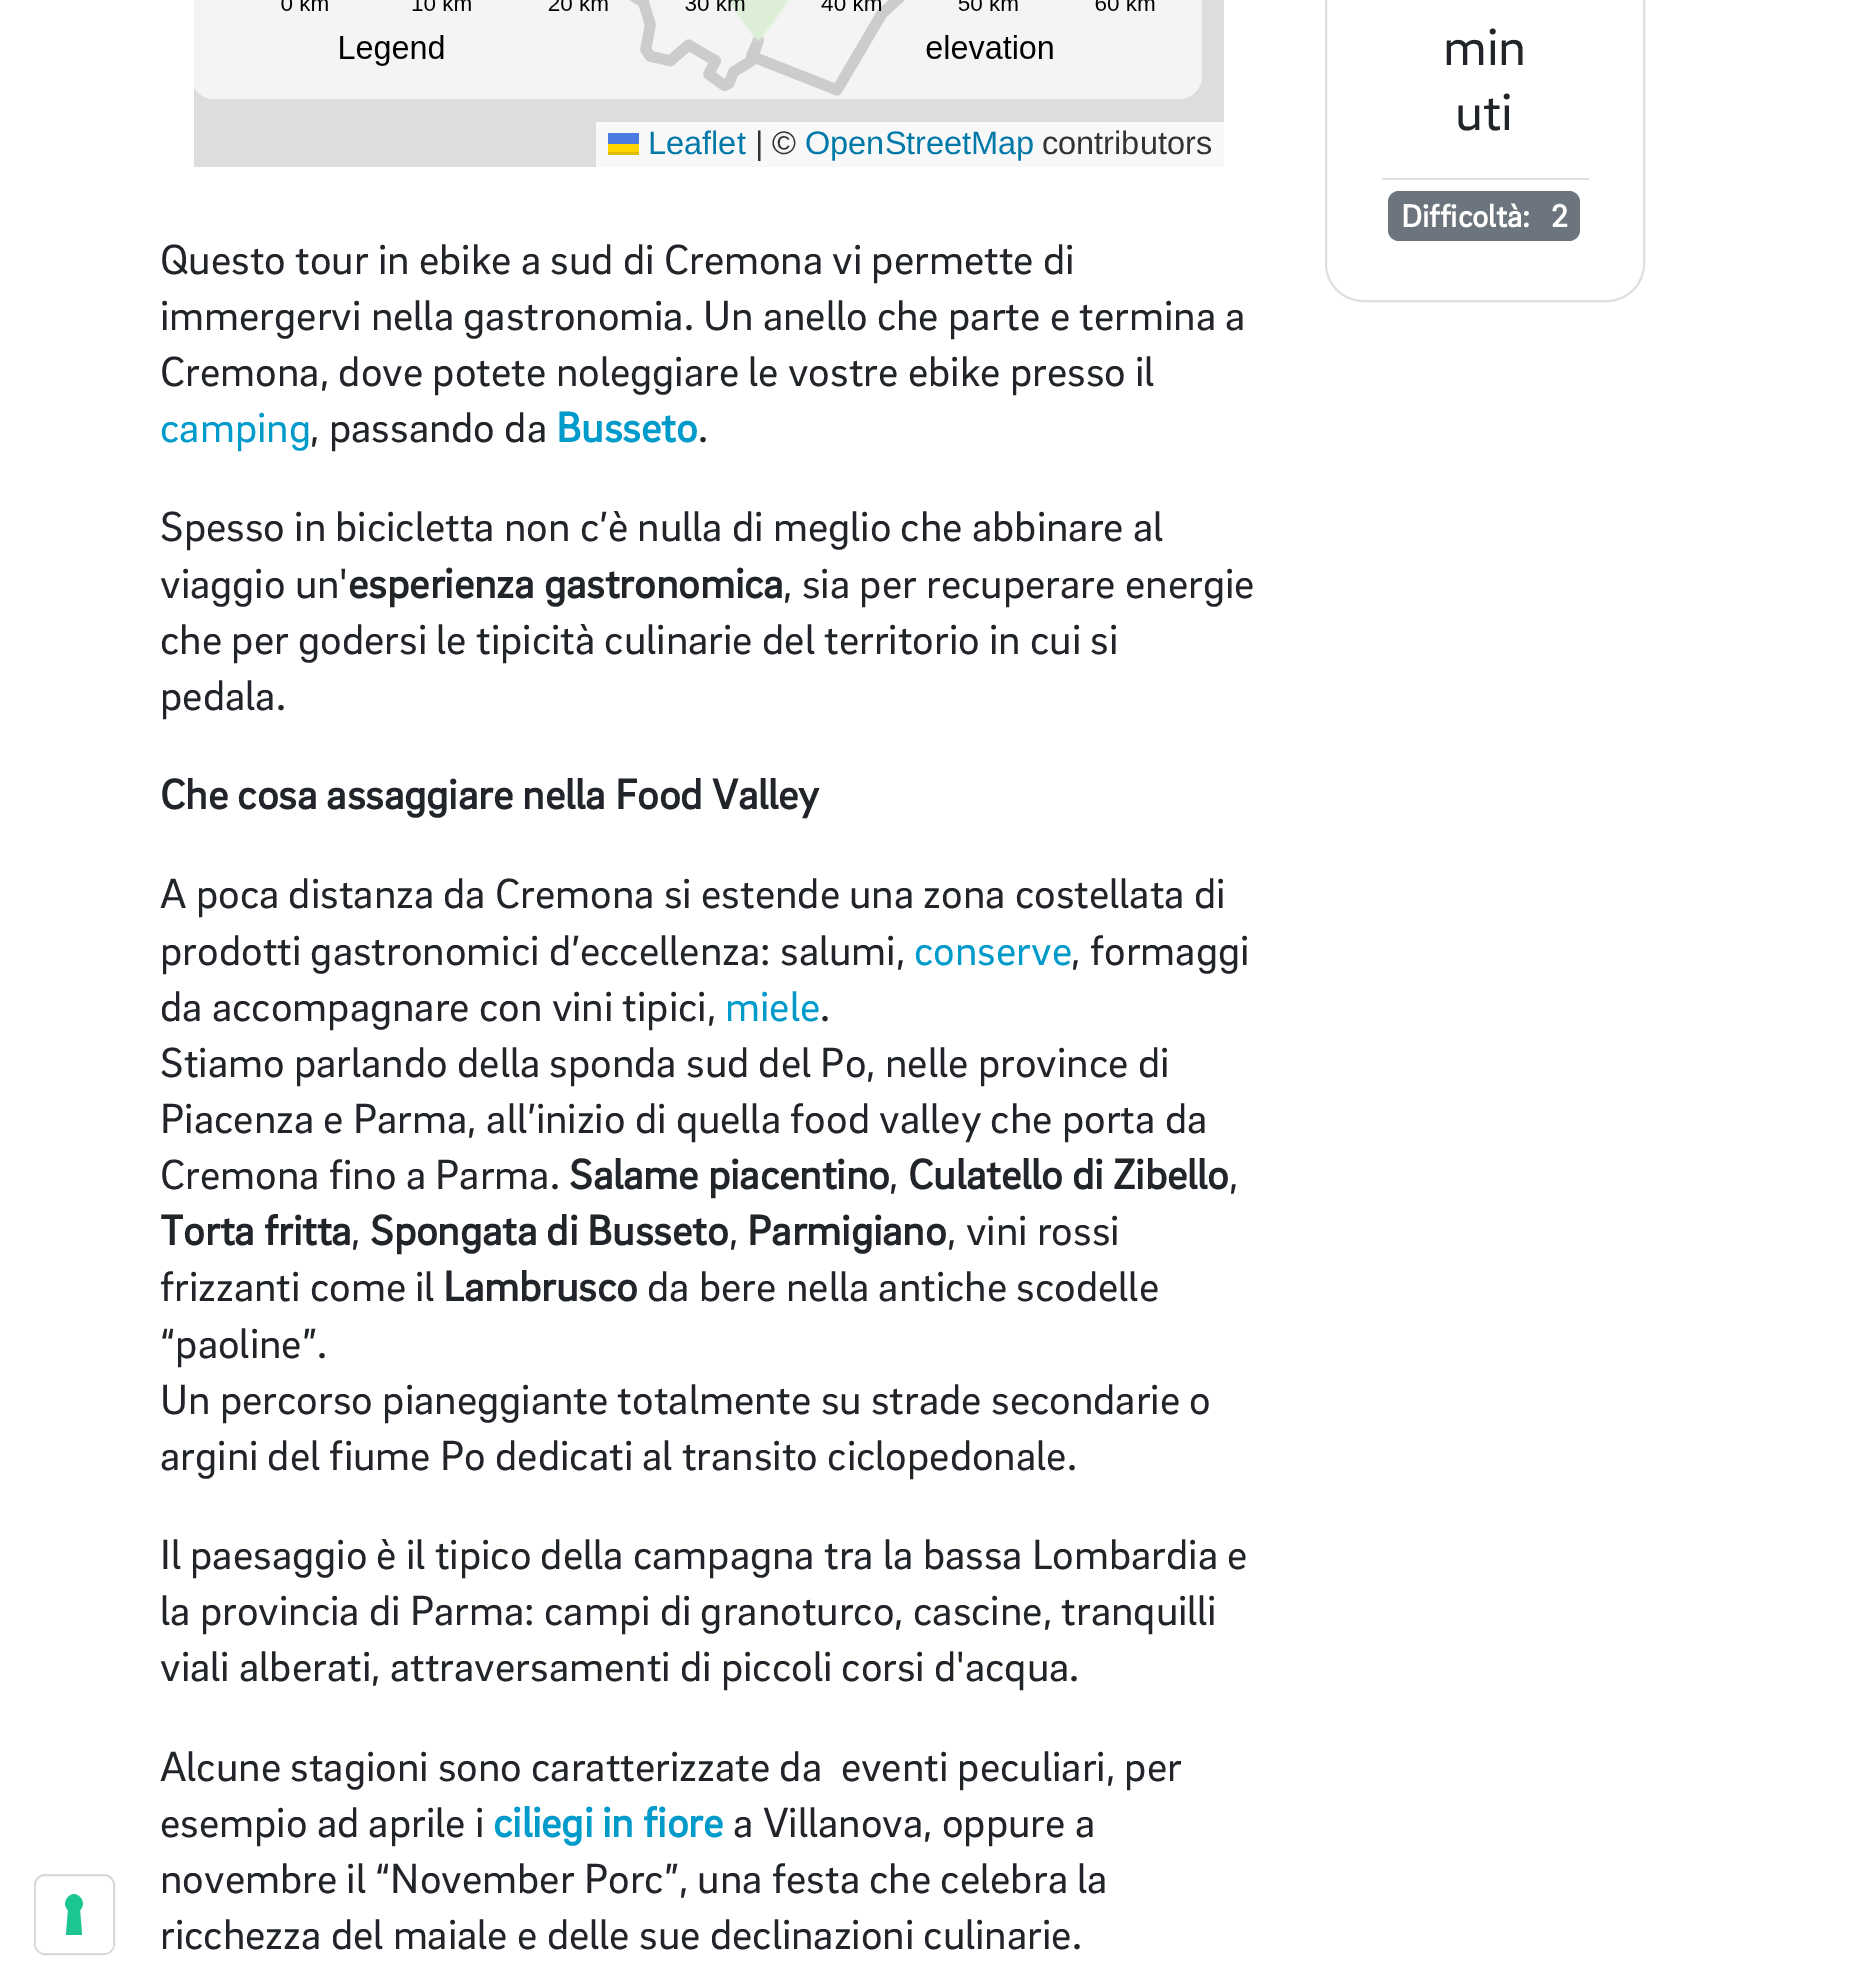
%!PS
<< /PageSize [1870 1988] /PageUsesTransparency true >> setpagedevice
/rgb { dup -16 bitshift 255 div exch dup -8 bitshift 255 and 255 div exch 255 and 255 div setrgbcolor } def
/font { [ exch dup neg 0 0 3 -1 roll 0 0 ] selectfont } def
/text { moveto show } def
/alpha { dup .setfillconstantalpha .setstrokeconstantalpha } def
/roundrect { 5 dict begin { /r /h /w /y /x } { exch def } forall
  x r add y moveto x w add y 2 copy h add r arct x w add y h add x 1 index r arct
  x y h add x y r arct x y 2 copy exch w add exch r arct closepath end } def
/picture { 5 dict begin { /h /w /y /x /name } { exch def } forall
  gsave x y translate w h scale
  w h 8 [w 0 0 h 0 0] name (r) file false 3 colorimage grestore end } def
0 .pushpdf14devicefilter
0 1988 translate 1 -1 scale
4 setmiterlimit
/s1 { /LiberationSans-Regular 32.5 font 16#0078A8 rgb } def
/s2 { /LiberationSans-Regular 32.5 font 16#333333 rgb } def
/s3 { /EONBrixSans-Regular 43.2 font 16#212529 rgb } def
/s4 { /EONBrixSans-Regular 43.2 font 16#009ACB rgb } def
/s5 { /EONBrixSans-Bold 43.2 font 16#009ACB rgb } def
/s6 { /EONBrixSans-Bold 43.2 font 16#212529 rgb } def
/s7 { /EONBrixSans-Regular 54 font 16#212529 rgb } def
/s8 { /EONBrixSans-Bold 32.5 font 16#FFFFFF rgb } def
16#FFFFFF rgb
0 0 1870 1988 rectfill
16#D9D9D9 rgb
2 setlinewidth
35 1875 79 79 10 roundrect stroke
16#FFFFFF rgb
36 1877 77 76 9 roundrect fill
16#1CC691 rgb
74 1894 moveto 82 1895 86 1905 80 1910 curveto 82 1935 lineto 66 1935 lineto 68 1910 lineto 62 1905 66 1895 74 1894 curveto closepath eofill
16#DDDDDD rgb
194 0 1030 167 rectfill
(pic1.raw) 629 0 276 96 picture
(pic3.raw) 732 1 51 26 picture
(pic2.raw) 726 0 65 42 picture
gsave
194 0 1030 167 rectclip
0.8 alpha
16#FAFAFA rgb
191 -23 1011 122 23 roundrect fill
grestore
(pic4.raw) 281 0 874 66 picture
16#F8F8F8 rgb
596 122 628 45 rectfill
16#4C7BE1 rgb
608 133 31 11 rectfill
s1
(Leaflet) 648 154 text
16#FFD500 rgb
608 144 31 8 rectfill
16#E0BC00 rgb
608 152 31 3 rectfill
s2
(| ©) 755 154 text
s1
(OpenStreetMap) 805 154 text
s2
(contributors) 1042 154 text
s3
(Questo tour in ebike a sud di Cremona vi permette di) 160 274 text
(immergervi nella gastronomia. Un anello che parte e termina a) 160 330 text
(Cremona, dove potete noleggiare le vostre ebike presso il) 160 386 text
s4
(camping) 160 442 text
s3
(, passando da) 310 442 text
s5
(Busseto) 556 442 text
s3
(.) 698 442 text
(Spesso in bicicletta non c’è nulla di meglio che abbinare al) 160 541 text
(viaggio un') 160 598 text
s6
(esperienza gastronomica) 348 598 text
s3
(, sia per recuperare energie) 783 598 text
(che per godersi le tipicità culinarie del territorio in cui si) 160 654 text
(pedala.) 160 710 text
s6
(Che cosa assaggiare nella Food Valley) 160 809 text
s3
(A poca distanza da Cremona si estende una zona costellata di) 160 908 text
(prodotti gastronomici d’eccellenza: salumi,) 160 965 text
s4
(conserve) 914 965 text
s3
(, formaggi) 1071 965 text
(da accompagnare con vini tipici,) 160 1021 text
s4
(miele) 725 1021 text
s3
(.) 820 1021 text
(Stiamo parlando della sponda sud del Po, nelle province di) 160 1077 text
(Piacenza e Parma, all’inizio di quella food valley che porta da) 160 1133 text
(Cremona fino a Parma.) 160 1189 text
s6
(Salame piacentino) 569 1189 text
s3
(,) 889 1189 text
s6
(Culatello di Zibello) 908 1189 text
s3
(,) 1229 1189 text
s6
(Torta fritta) 160 1245 text
s3
(,) 351 1245 text
s6
(Spongata di Busseto) 370 1245 text
s3
(,) 729 1245 text
s6
(Parmigiano) 747 1245 text
s3
(, vini rossi) 947 1245 text
(frizzanti come il) 160 1301 text
s6
(Lambrusco) 443 1301 text
s3
(da bere nella antiche scodelle) 647 1301 text
(“paoline”.) 160 1358 text
(Un percorso pianeggiante totalmente su strade secondarie o) 160 1414 text
(argini del fiume Po dedicati al transito ciclopedonale.) 160 1470 text
(Il paesaggio è il tipico della campagna tra la bassa Lombardia e) 160 1569 text
(la provincia di Parma: campi di granoturco, cascine, tranquilli) 160 1625 text
(viali alberati, attraversamenti di piccoli corsi d'acqua.) 160 1681 text
(Alcune stagioni sono caratterizzate da  eventi peculiari, per) 160 1781 text
(esempio ad aprile i) 160 1837 text
s5
(ciliegi in fiore) 493 1837 text
s3
(a Villanova, oppure a) 733 1837 text
(novembre il “November Porc”, una festa che celebra la) 160 1893 text
(ricchezza del maiale e delle sue declinazioni culinarie.) 160 1949 text
16#DFDFDF rgb
1326 -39 318 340 37 roundrect stroke
1382 178 207 2 rectfill
s7
(min) 1443 65 text
(uti) 1455 130 text
16#6C757D rgb
1388 191 192 50 11 roundrect fill
s8
(Difficoltà:   2) 1401 227 text
.poppdf14devicefilter showpage
